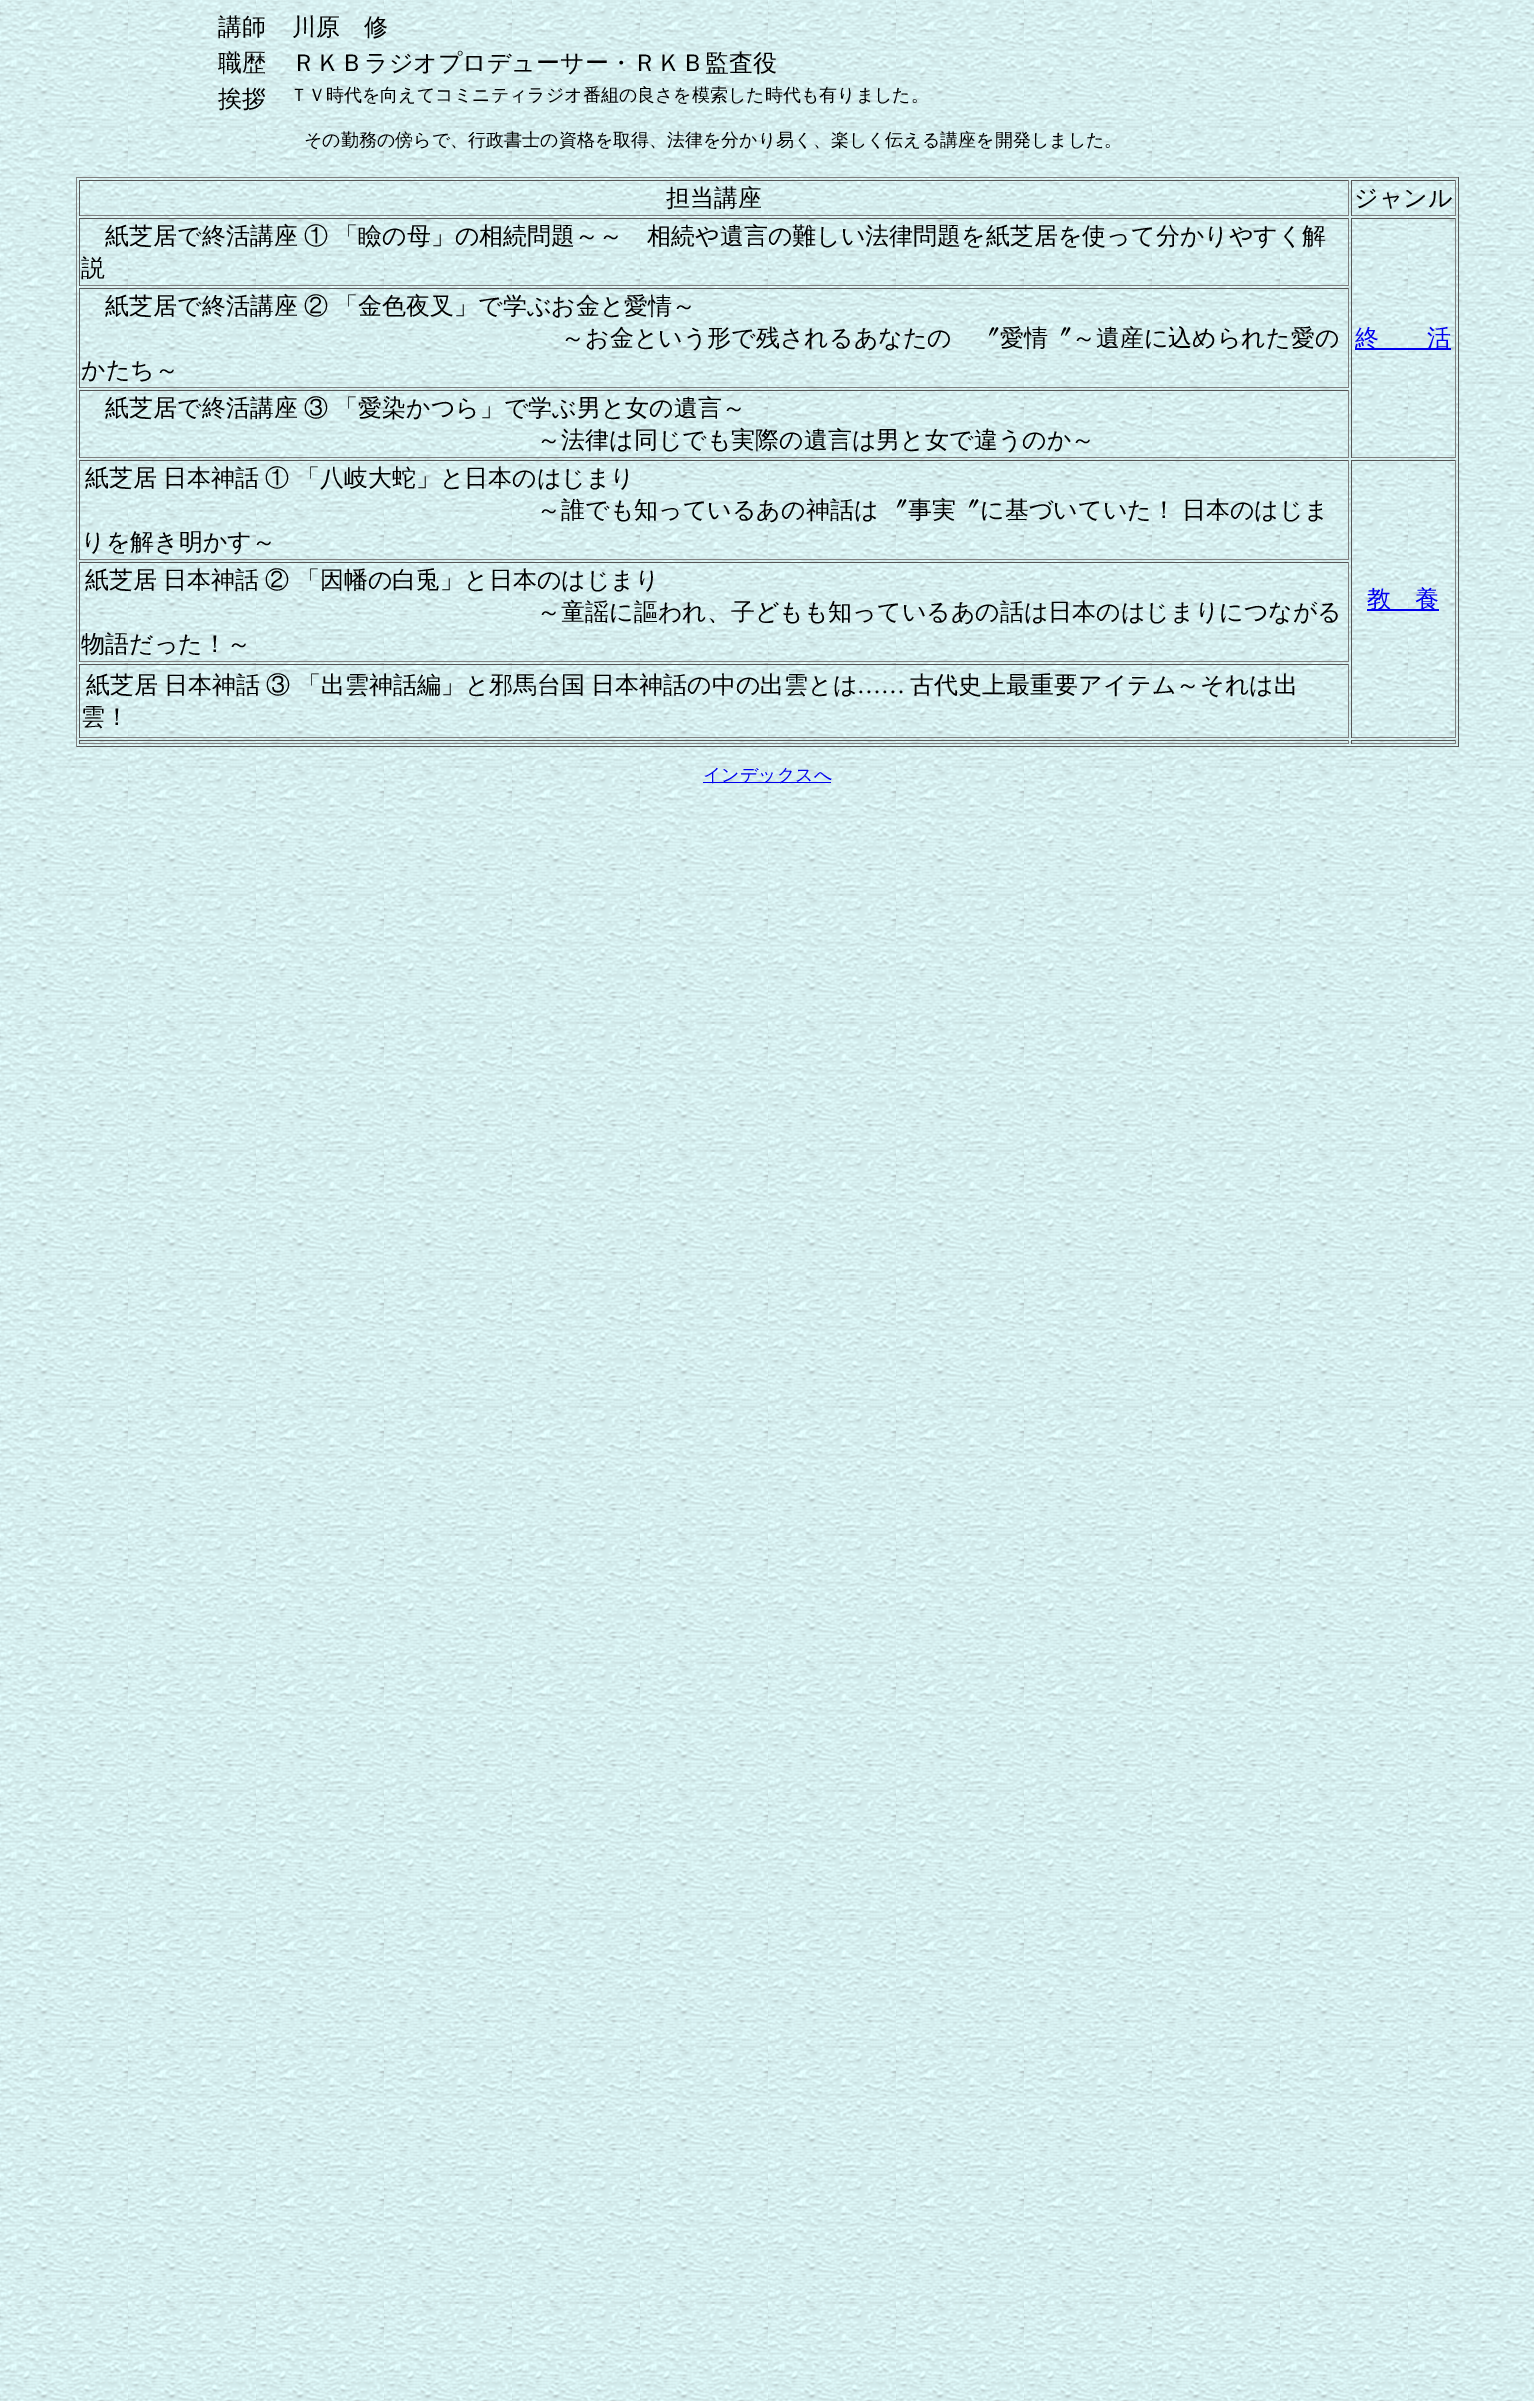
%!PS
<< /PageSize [1534 2401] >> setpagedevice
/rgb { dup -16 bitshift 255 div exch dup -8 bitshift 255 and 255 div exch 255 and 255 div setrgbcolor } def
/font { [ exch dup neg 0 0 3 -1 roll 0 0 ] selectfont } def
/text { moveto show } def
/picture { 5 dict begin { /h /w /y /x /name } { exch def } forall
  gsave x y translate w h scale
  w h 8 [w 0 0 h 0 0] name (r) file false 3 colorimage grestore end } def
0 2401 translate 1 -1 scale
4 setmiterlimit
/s1 { /WenQuanYiZenHei-Medium 24 font 16#000000 rgb } def
/s2 { /WenQuanYiZenHei-Medium 18 font 16#000000 rgb } def
/s3 { /WenQuanYiZenHei-Medium 24 font 16#0000EE rgb } def
/s4 { /LiberationSerif-Regular 24 font 16#000000 rgb } def
/s5 { /WenQuanYiZenHei-Medium 18 font 16#0000EE rgb } def
16#FFFFFF rgb
0 0 1534 2401 rectfill
(pic1.raw) 0 0 1534 2401 picture
s1
(講師) 218 35 text
(川原　修) 292 35 text
(職歴) 218 71 text
(ＲＫＢラジオプロデューサー・ＲＫＢ監査役) 292 71 text
(挨拶) 218 107 text
s2
(ＴＶ時代を向えてコミニティラジオ番組の良さを模索した時代も有りました。) 290 101 text
(その勤務の傍らで、行政書士の資格を取得、法律を分かり易く、楽しく伝える講座を開発しました。) 304 146 text
16#808080 rgb
76 177 1383 1 rectfill
16#555555 rgb
1458 177 1 570 rectfill
76 746 1383 1 rectfill
16#808080 rgb
76 177 1 570 rectfill
16#555555 rgb
79 180 1270 1 rectfill
16#808080 rgb
1348 180 1 36 rectfill
79 215 1270 1 rectfill
16#555555 rgb
79 180 1 36 rectfill
s1
(担当講座) 666 206 text
16#555555 rgb
1351 180 105 1 rectfill
16#808080 rgb
1455 180 1 36 rectfill
1351 215 105 1 rectfill
16#555555 rgb
1351 180 1 36 rectfill
s1
(ジャンル) 1354 206 text
16#555555 rgb
79 218 1270 1 rectfill
16#808080 rgb
1348 218 1 68 rectfill
79 285 1270 1 rectfill
16#555555 rgb
79 218 1 68 rectfill
16#000000 rgb
105 244 moveto -1 0 32 (紙芝居で終活講座 ① 「瞼の母」の相続問題～～　相続や遺言の難しい法律問題を紙芝居を使って分かりやすく解) widthshow
(説) 81 276 text
16#555555 rgb
1351 218 105 1 rectfill
16#808080 rgb
1455 218 1 240 rectfill
1351 457 105 1 rectfill
16#555555 rgb
1351 218 1 240 rectfill
16#0000EE rgb
1355 348 96 2 rectfill
(終　　活) 1355 346 text
16#555555 rgb
79 288 1270 1 rectfill
16#808080 rgb
1348 288 1 100 rectfill
79 387 1270 1 rectfill
16#555555 rgb
79 288 1 100 rectfill
16#000000 rgb
105 314 moveto -1 0 32 (紙芝居で終活講座 ② 「金色夜叉」で学ぶお金と愛情～) widthshow
(～お金という形で残されるあなたの　〞愛情〞～遺産に込められた愛の) 561 346 text
(かたち～) 81 378 text
16#555555 rgb
79 390 1270 1 rectfill
16#808080 rgb
1348 390 1 68 rectfill
79 457 1270 1 rectfill
16#555555 rgb
79 390 1 68 rectfill
16#000000 rgb
105 416 moveto -1 0 32 (紙芝居で終活講座 ③ 「愛染かつら」で学ぶ男と女の遺言～) widthshow
(～法律は同じでも実際の遺言は男と女で違うのか～) 537 448 text
16#555555 rgb
79 460 1270 1 rectfill
16#808080 rgb
1348 460 1 100 rectfill
79 559 1270 1 rectfill
16#555555 rgb
79 460 1 100 rectfill
16#000000 rgb
85 486 moveto -1 0 32 (紙芝居 日本神話 ① 「八岐大蛇」と日本のはじまり) widthshow
537 518 moveto -1 0 32 (～誰でも知っているあの神話は 〞事実〞に基づいていた！ 日本のはじま) widthshow
(りを解き明かす～) 81 550 text
16#555555 rgb
1351 460 105 1 rectfill
16#808080 rgb
1455 460 1 278 rectfill
1351 737 105 1 rectfill
16#555555 rgb
1351 460 1 278 rectfill
16#0000EE rgb
1367 609 72 2 rectfill
(教　養) 1367 607 text
16#555555 rgb
79 562 1270 1 rectfill
16#808080 rgb
1348 562 1 100 rectfill
79 661 1270 1 rectfill
16#555555 rgb
79 562 1 100 rectfill
16#000000 rgb
85 588 moveto -1 0 32 (紙芝居 日本神話 ② 「因幡の白兎」と日本のはじまり) widthshow
(～童謡に謳われ、子どもも知っているあの話は日本のはじまりにつながる) 537 620 text
(物語だった！～) 81 652 text
16#555555 rgb
79 664 1270 1 rectfill
16#808080 rgb
1348 664 1 74 rectfill
79 737 1270 1 rectfill
16#555555 rgb
79 664 1 74 rectfill
16#000000 rgb
86 693 moveto -1 0 32 (紙芝居 日本神話 ③ 「出雲神話編」と邪馬台国 日本神話の中の出雲とは) widthshow
s4
(……) 857 693 text
s1
(古代史上最重要アイテム～それは出) 910 693 text
(雲！) 81 725 text
16#555555 rgb
79 740 1270 1 rectfill
16#808080 rgb
1348 740 1 4 rectfill
79 743 1270 1 rectfill
16#555555 rgb
79 740 1 4 rectfill
1351 740 105 1 rectfill
16#808080 rgb
1455 740 1 4 rectfill
1351 743 105 1 rectfill
16#555555 rgb
1351 740 1 4 rectfill
16#0000EE rgb
703 782 128 1 rectfill
s5
(インデックスへ) 703 781 text
showpage
